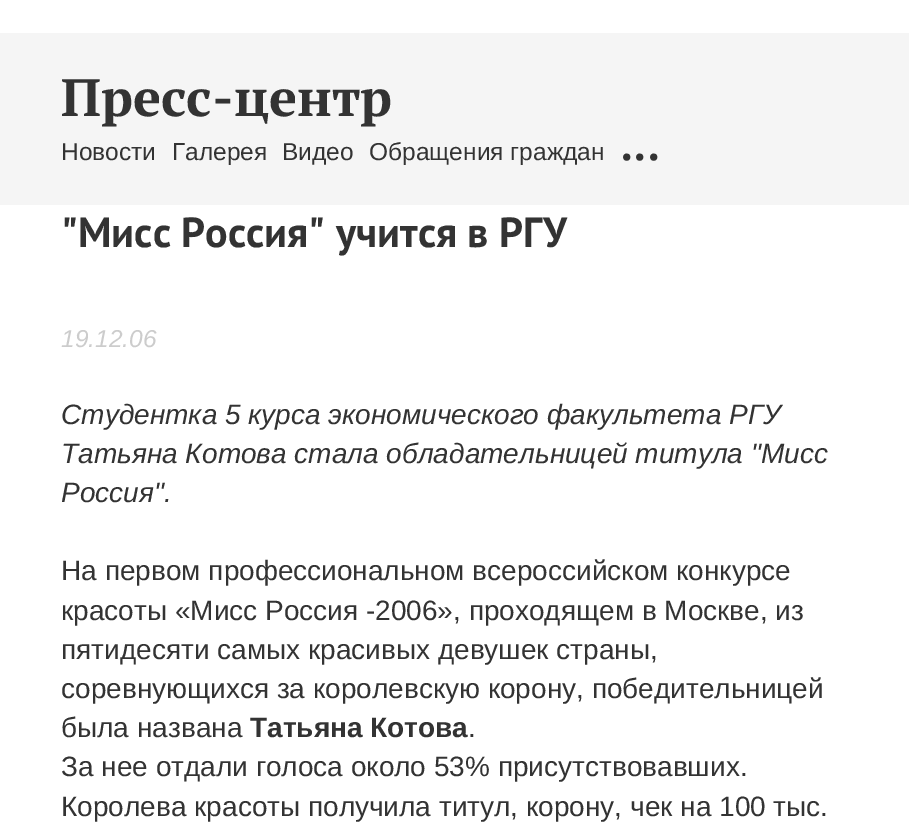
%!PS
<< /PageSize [909 836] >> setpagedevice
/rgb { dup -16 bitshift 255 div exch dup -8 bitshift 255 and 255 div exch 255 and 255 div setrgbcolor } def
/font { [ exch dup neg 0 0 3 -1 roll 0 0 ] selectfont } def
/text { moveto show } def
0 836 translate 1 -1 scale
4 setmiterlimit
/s1 { /PTSerif-Bold 52.5 font 16#333333 rgb } def
/s2 { /LiberationSans-Regular 24.5 font 16#333333 rgb } def
/s3 { /PTSans-Regular 63 font 16#333333 rgb } def
/s4 { /PTSans-Bold 42 font 16#333333 rgb } def
/s5 { /LiberationSans-Italic 24.5 font 16#CCCCCC rgb } def
/s6 { /LiberationSans-Italic 28 font 16#333333 rgb } def
/s7 { /LiberationSans-Regular 28 font 16#333333 rgb } def
/s8 { /LiberationSans-Bold 28 font 16#333333 rgb } def
16#FFFFFF rgb
0 0 909 836 rectfill
16#F5F5F5 rgb
0 33 909 172 rectfill
s1
(Пресс-центр) 61 116 text
s2
(Новости) 61 160 text
(Галерея) 172 160 text
(Видео) 282 160 text
(Обращения граждан) 369 160 text
s3
(...) 620 160 text
s4
("Мисс Россия" учится в РГУ) 61 247 text
s5
(19.12.06) 61 347 text
s6
(Студентка 5 курса экономического факультета РГУ) 61 424 text
(Татьяна Котова стала обладательницей титула "Мисс) 61 463 text
(Россия".) 61 502 text
s7
(На первом профессиональном всероссийском конкурсе) 61 580 text
(красоты «Мисс Россия -2006», проходящем в Москве, из) 61 620 text
(пятидесяти самых красивых девушек страны,) 61 659 text
(соревнующихся за королевскую корону, победительницей) 61 698 text
(была названа) 61 737 text
s8
(Татьяна Котова) 250 737 text
s7
(.) 468 737 text
(За нее отдали голоса около 53% присутствовавших.) 61 776 text
(Королева красоты получила титул, корону, чек на 100 тыс.) 61 816 text
showpage
